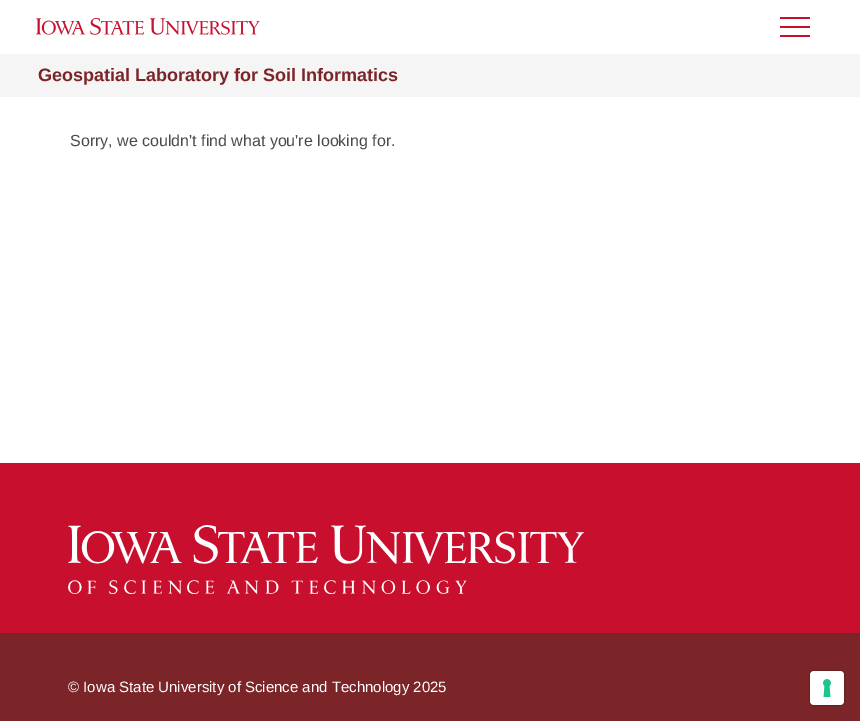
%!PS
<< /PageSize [860 721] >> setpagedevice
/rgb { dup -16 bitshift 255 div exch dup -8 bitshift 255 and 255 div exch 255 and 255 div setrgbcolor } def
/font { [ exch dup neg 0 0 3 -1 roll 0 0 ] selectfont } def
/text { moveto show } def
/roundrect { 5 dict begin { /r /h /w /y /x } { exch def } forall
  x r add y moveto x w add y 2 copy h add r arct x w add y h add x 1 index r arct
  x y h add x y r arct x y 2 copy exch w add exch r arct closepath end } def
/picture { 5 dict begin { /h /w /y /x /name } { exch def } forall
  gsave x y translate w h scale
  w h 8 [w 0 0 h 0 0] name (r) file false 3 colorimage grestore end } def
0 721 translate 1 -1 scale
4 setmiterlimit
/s1 { /LiberationSans-Bold 18 font 16#7C2529 rgb } def
/s2 { /LiberationSans-Regular 16 font 16#4A4A4A rgb } def
/s3 { /LiberationSans-Regular 15 font 16#FFFFFF rgb } def
16#FFFFFF rgb
0 0 860 721 rectfill
16#C8102E rgb
780 17 30 2 rectfill
780 26 30 2 rectfill
780 35 30 2 rectfill
(pic1.raw) 36 18 224 17 picture
16#F5F5F5 rgb
0 54 860 43 rectfill
s1
(Geospatial Laboratory for Soil Informatics) 38 81 text
s2
(Sorry, we couldn't find what you're looking for.) 70 146 text
16#C8102E rgb
0 463 860 170 rectfill
(pic2.raw) 68 525 516 69 picture
16#7C2529 rgb
0 633 860 88 rectfill
s3
(© Iowa State University of Science and Technology 2025) 68 692 text
16#691F23 rgb
809.5 670.5 35 35 4.5 roundrect stroke
16#FFFFFF rgb
810 671 34 34 4 roundrect fill
(pic3.raw) 823 679 8 18 picture
showpage
